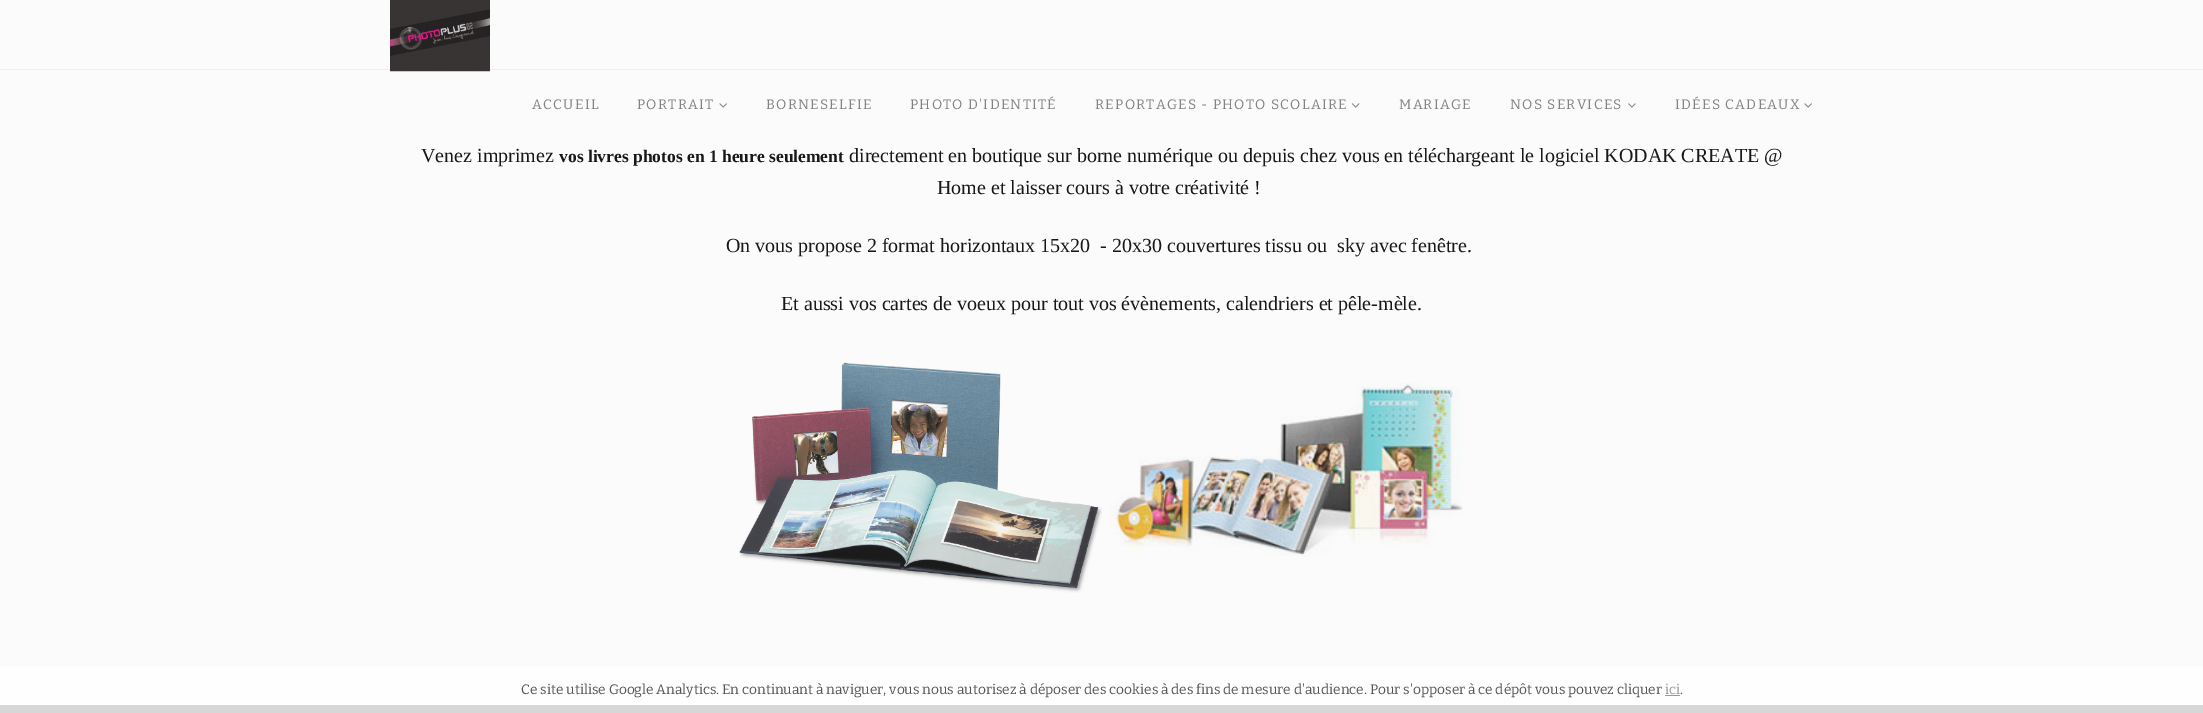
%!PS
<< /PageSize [2203 713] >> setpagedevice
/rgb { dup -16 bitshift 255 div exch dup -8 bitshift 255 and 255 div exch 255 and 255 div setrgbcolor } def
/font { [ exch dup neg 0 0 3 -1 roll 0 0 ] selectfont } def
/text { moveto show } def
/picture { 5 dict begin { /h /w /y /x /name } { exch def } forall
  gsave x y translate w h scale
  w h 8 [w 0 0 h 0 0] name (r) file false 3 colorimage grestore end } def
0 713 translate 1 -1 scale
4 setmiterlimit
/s1 { /LiberationSerif-Regular 20 font 16#181818 rgb } def
/s2 { /LiberationSerif-Bold 17.5 font 16#181818 rgb } def
/s3 { /Bitter-Thin 13.75 font 16#555555 rgb } def
/s4 { /Bitter-Thin 13.75 font 16#999999 rgb } def
16#FBFBFB rgb
0 0 2203 713 rectfill
16#FEFEFE rgb
0 666 2203 39 rectfill
16#EFEFEF rgb
0 69 moveto 0 70 lineto 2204 70 lineto 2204 1 lineto 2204 69 lineto closepath fill
(pic1.raw) 390 0 100 72 picture
/Bitter-Thin 13.75 font
16#828282 rgb
532 109 moveto 1.25 0 (ACCUEIL) ashow
637 109 moveto 1.25 0 (PORTRAIT) ashow
(pic2.raw) 719 103 8 5 picture
766 109 moveto 1.25 0 (BORNESELFIE) ashow
910 109 moveto 1.25 0 (PHOTO D'IDENTITÉ) ashow
1095 109 moveto 1.25 0 (REPORTAGES - PHOTO SCOLAIRE) ashow
(pic3.raw) 1351 103 9 5 picture
1399 109 moveto 1.25 0 (MARIAGE) ashow
1510 109 moveto 1.25 0 (NOS SERVICES) ashow
(pic4.raw) 1628 103 8 5 picture
1675 109 moveto 1.25 0 (IDÉES CADEAUX) ashow
(pic2.raw) 1804 103 8 5 picture
s1
(Venez imprimez) 421 162 text
s2
(vos livres photos en 1 heure seulement) 559 162 text
s1
(directement en boutique sur borne numérique ou depuis chez vous en téléchargeant le logiciel KODAK CREATE @) 849 162 text
(Home et laisser cours à votre créativité !) 937 194 text
(On vous propose 2 format horizontaux 15x20  - 20x30 couvertures tissu ou  sky avec fenêtre.) 726 252 text
(Et aussi vos cartes de voeux pour tout vos évènements, calendriers et pêle-mèle.) 781 310 text
(pic5.raw) 739 362 363 231 picture
(pic6.raw) 1110 382 353 174 picture
16#D7D7D7 rgb
0 705 2203 8 rectfill
s3
(Ce site utilise Google Analytics. En continuant à naviguer, vous nous autorisez à déposer des cookies à des fins de mesure d'audience. Pour s'opposer à ce dépôt vous pouvez cliquer) 521 694 text
s4
(ici) 1665 694 text
s3
(.) 1680 694 text
16#999999 rgb
1665 695 15 1 rectfill
showpage
